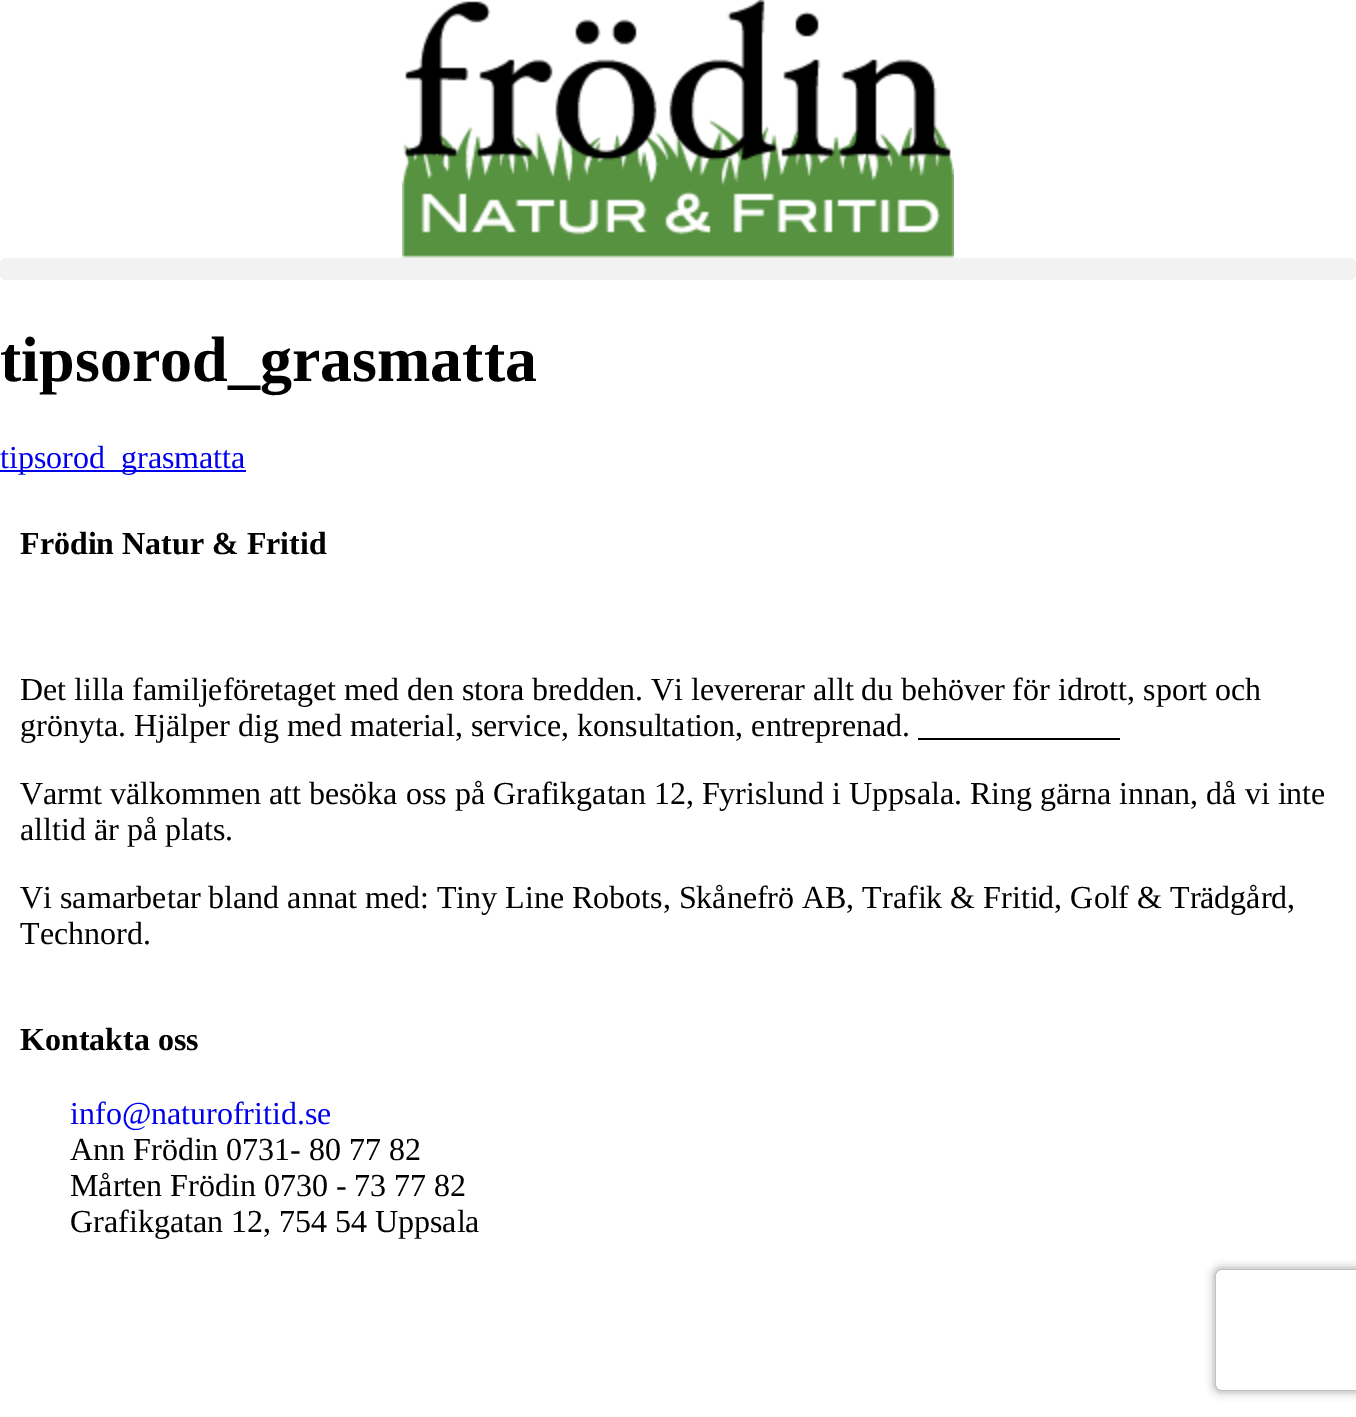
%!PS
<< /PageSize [1356 1417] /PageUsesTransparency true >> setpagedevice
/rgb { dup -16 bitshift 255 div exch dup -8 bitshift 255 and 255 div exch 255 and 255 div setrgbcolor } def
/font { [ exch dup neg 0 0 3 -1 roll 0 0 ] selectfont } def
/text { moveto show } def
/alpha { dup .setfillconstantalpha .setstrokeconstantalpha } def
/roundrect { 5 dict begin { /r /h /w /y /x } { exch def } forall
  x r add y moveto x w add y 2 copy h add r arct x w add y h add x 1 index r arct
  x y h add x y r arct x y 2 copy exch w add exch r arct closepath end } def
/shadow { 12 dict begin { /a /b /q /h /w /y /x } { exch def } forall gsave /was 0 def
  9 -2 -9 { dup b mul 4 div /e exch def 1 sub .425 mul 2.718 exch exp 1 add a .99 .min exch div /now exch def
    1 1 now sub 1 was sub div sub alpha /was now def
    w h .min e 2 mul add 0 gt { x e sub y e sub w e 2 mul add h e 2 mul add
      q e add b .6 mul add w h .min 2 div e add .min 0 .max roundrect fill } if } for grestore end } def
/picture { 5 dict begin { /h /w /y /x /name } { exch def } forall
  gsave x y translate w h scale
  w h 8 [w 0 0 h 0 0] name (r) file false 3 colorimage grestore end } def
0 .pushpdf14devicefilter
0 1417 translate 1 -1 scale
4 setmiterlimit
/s1 { /LiberationSerif-Bold 64 font 16#000000 rgb } def
/s2 { /LiberationSerif-Regular 32 font 16#0000EE rgb } def
/s3 { /LiberationSerif-Bold 32 font 16#000000 rgb } def
/s4 { /LiberationSerif-Regular 32 font 16#000000 rgb } def
16#FFFFFF rgb
0 0 1356 1417 rectfill
(pic1.raw) 402 0 552 258 picture
16#F2F2F2 rgb
0 258 1356 22 6 roundrect fill
s1
(tipsorod_grasmatta) 0 381 text
16#0000EE rgb
0 470 246 2 rectfill
s2
(tipsorod_grasmatta) 0 468 text
s3
(Frödin Natur & Fritid) 20 554 text
s4
(Det lilla familjeföretaget med den stora bredden. Vi levererar allt du behöver för idrott, sport och) 20 700 text
(grönyta. Hjälper dig med material, service, konsultation, entreprenad.) 20 736 text
918 738 202 2 rectfill
(Varmt välkommen att besöka oss på Grafikgatan 12, Fyrislund i Uppsala. Ring gärna innan, då vi inte) 20 804 text
(alltid är på plats.) 20 840 text
(Vi samarbetar bland annat med: Tiny Line Robots, Skånefrö AB, Trafik & Fritid, Golf & Trädgård,) 20 908 text
(Technord.) 20 944 text
s3
(Kontakta oss) 20 1050 text
s2
(info@naturofritid.se) 70 1124 text
s4
(Ann Frödin 0731- 80 77 82) 70 1160 text
(Mårten Frödin 0730 - 73 77 82) 70 1196 text
(Grafikgatan 12, 754 54 Uppsala) 70 1232 text
gsave
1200 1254 moveto 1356 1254 lineto 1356 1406 lineto 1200 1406 lineto closepath 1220 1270 moveto 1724 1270 lineto 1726 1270 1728 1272 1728 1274 curveto 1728 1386 lineto 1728 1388 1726 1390 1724 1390 curveto 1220 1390 lineto 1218 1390 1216 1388 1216 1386 curveto 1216 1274 lineto 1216 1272 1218 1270 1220 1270 curveto closepath eoclip newpath
16#808080 rgb
1216 1270 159 120 4 5 1 shadow
grestore
.poppdf14devicefilter showpage
